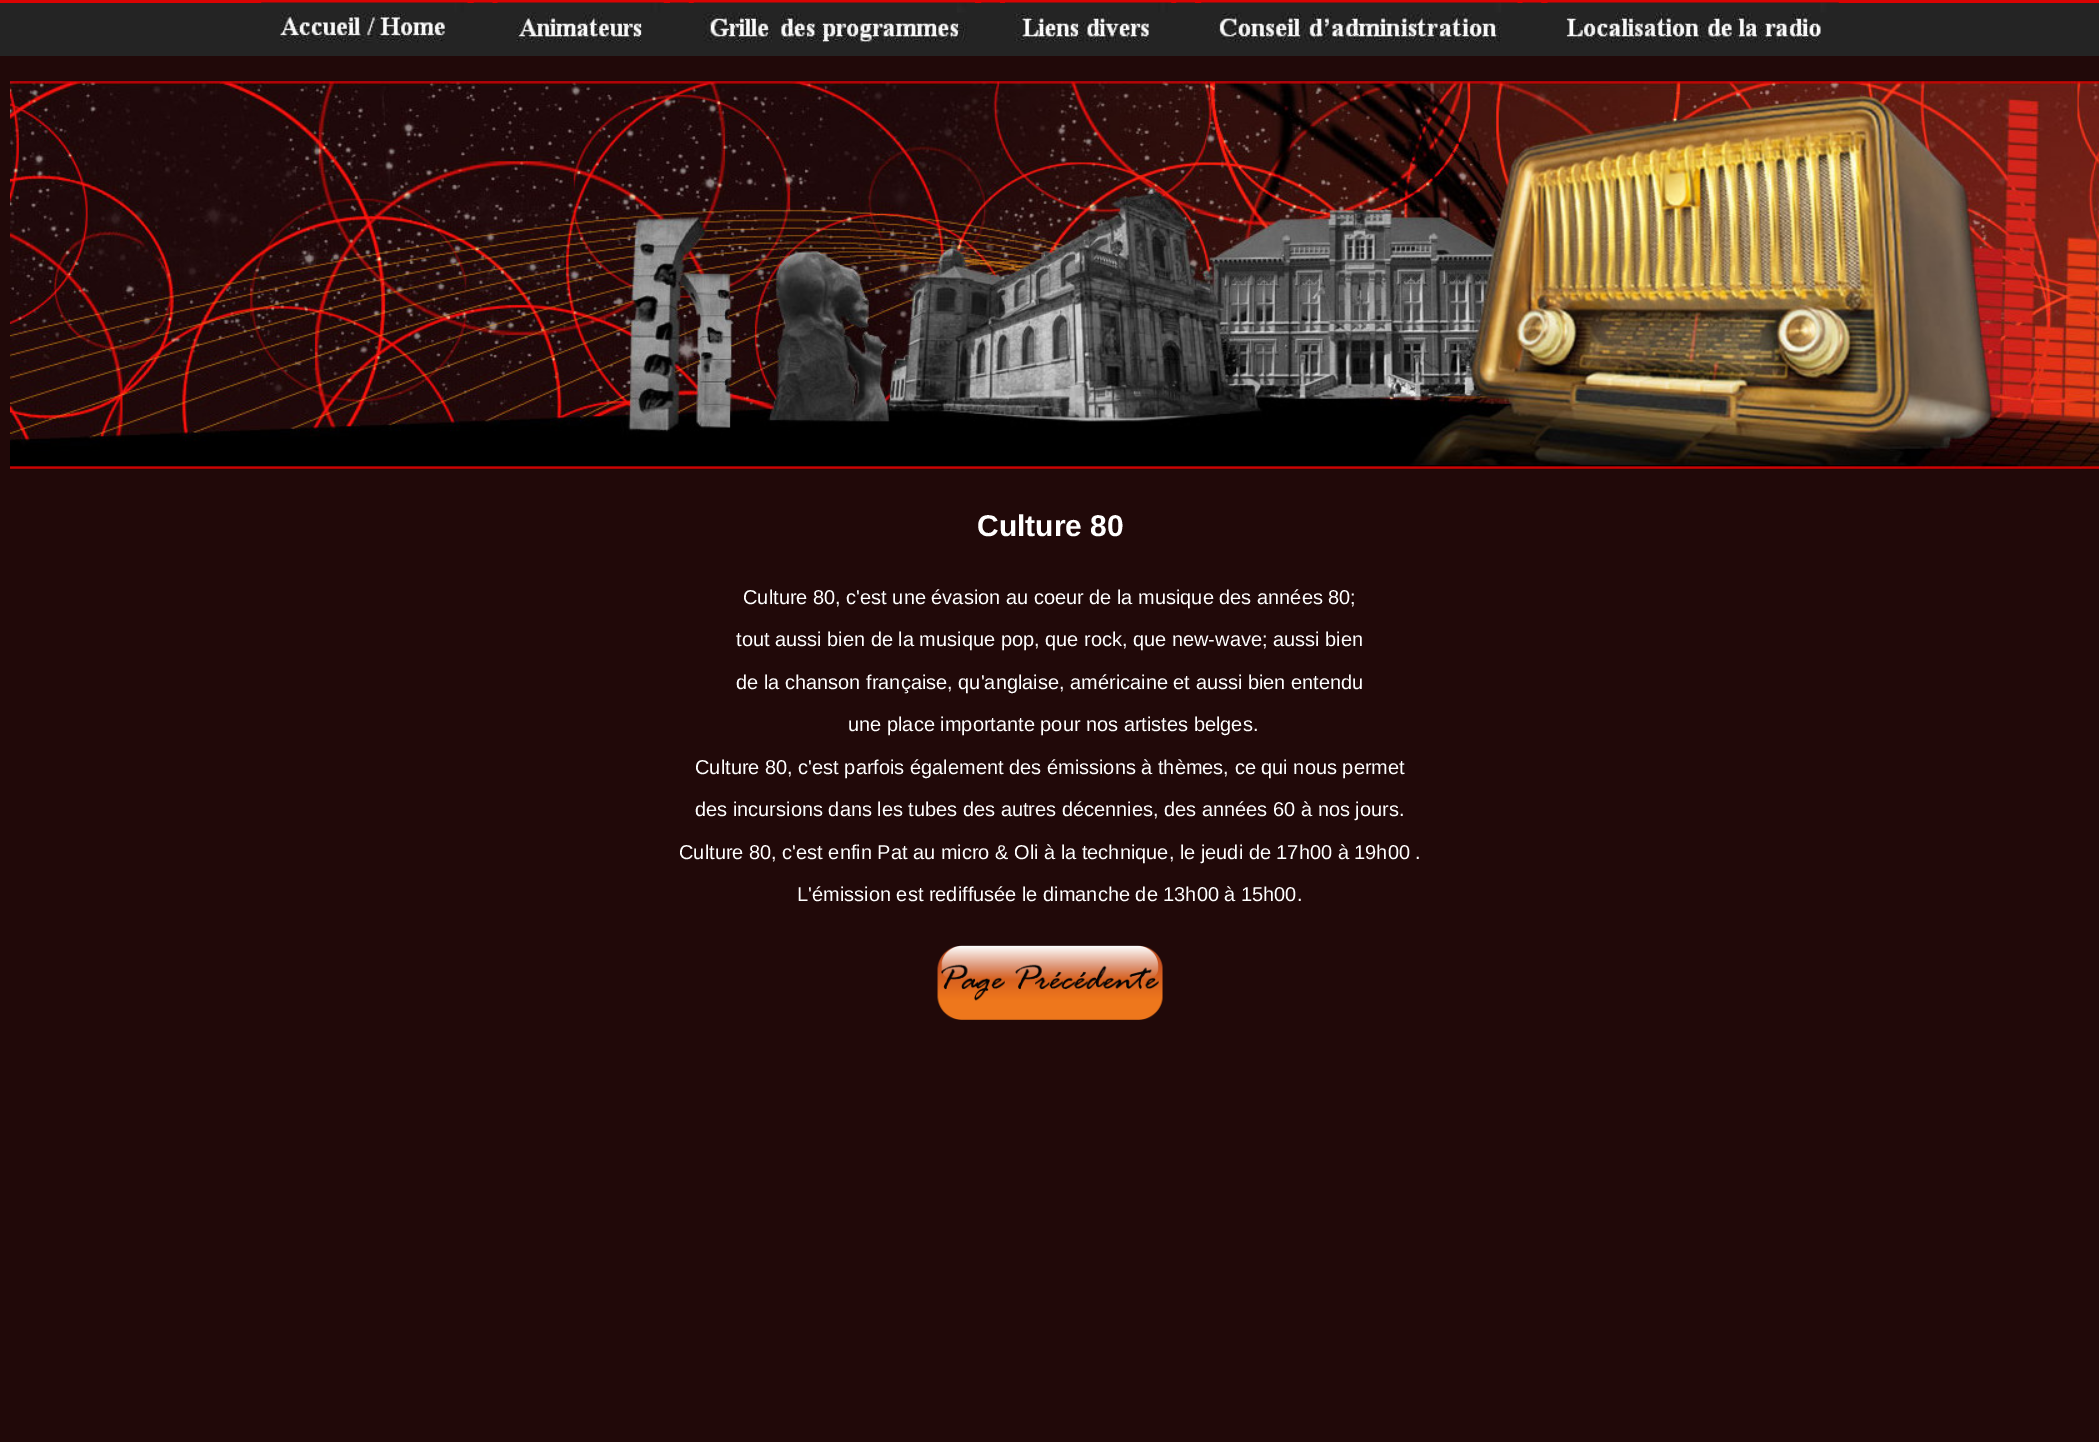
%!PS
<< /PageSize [2099 1442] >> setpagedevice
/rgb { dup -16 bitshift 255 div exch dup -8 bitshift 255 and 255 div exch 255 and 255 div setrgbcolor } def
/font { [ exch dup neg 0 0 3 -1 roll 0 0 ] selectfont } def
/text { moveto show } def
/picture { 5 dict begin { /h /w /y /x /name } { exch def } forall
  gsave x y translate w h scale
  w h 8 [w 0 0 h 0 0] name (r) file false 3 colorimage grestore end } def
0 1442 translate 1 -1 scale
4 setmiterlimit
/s1 { /LiberationSans-Bold 30 font 16#FFFFFF rgb } def
/s2 { /LiberationSans-Regular 20 font 16#FFFFFF rgb } def
16#210909 rgb
0 0 2099 1442 rectfill
16#242424 rgb
0 3 2099 53 rectfill
16#DA0302 rgb
0 0 2099 3 rectfill
(pic1.raw) 261 2 207 41 picture
(pic2.raw) 473 2 20 1 picture
(pic3.raw) 497 2 167 41 picture
(pic4.raw) 670 2 19 1 picture
(pic5.raw) 693 2 282 41 picture
(pic6.raw) 981 2 19 1 picture
(pic7.raw) 1005 2 167 41 picture
(pic6.raw) 1176 2 19 1 picture
(pic8.raw) 1201 2 317 41 picture
(pic9.raw) 1522 2 20 1 picture
(pic10.raw) 1547 2 292 41 picture
(pic11.raw) 10 81 2089 388 picture
s1
(Culture 80) 977 536 text
s2
(Culture 80, c'est une évasion au coeur de la musique des années 80;) 743 604 text
(tout aussi bien de la musique pop, que rock, que new-wave; aussi bien) 736 646 text
(de la chanson française, qu'anglaise, américaine et aussi bien entendu) 736 689 text
(une place importante pour nos artistes belges.) 848 731 text
(Culture 80, c'est parfois également des émissions à thèmes, ce qui nous permet) 695 774 text
(des incursions dans les tubes des autres décennies, des années 60 à nos jours.) 695 816 text
(Culture 80, c'est enfin Pat au micro & Oli à la technique, le jeudi de 17h00 à 19h00 .) 679 859 text
(L'émission est rediffusée le dimanche de 13h00 à 15h00.) 797 901 text
(pic12.raw) 937 945 226 75 picture
showpage
